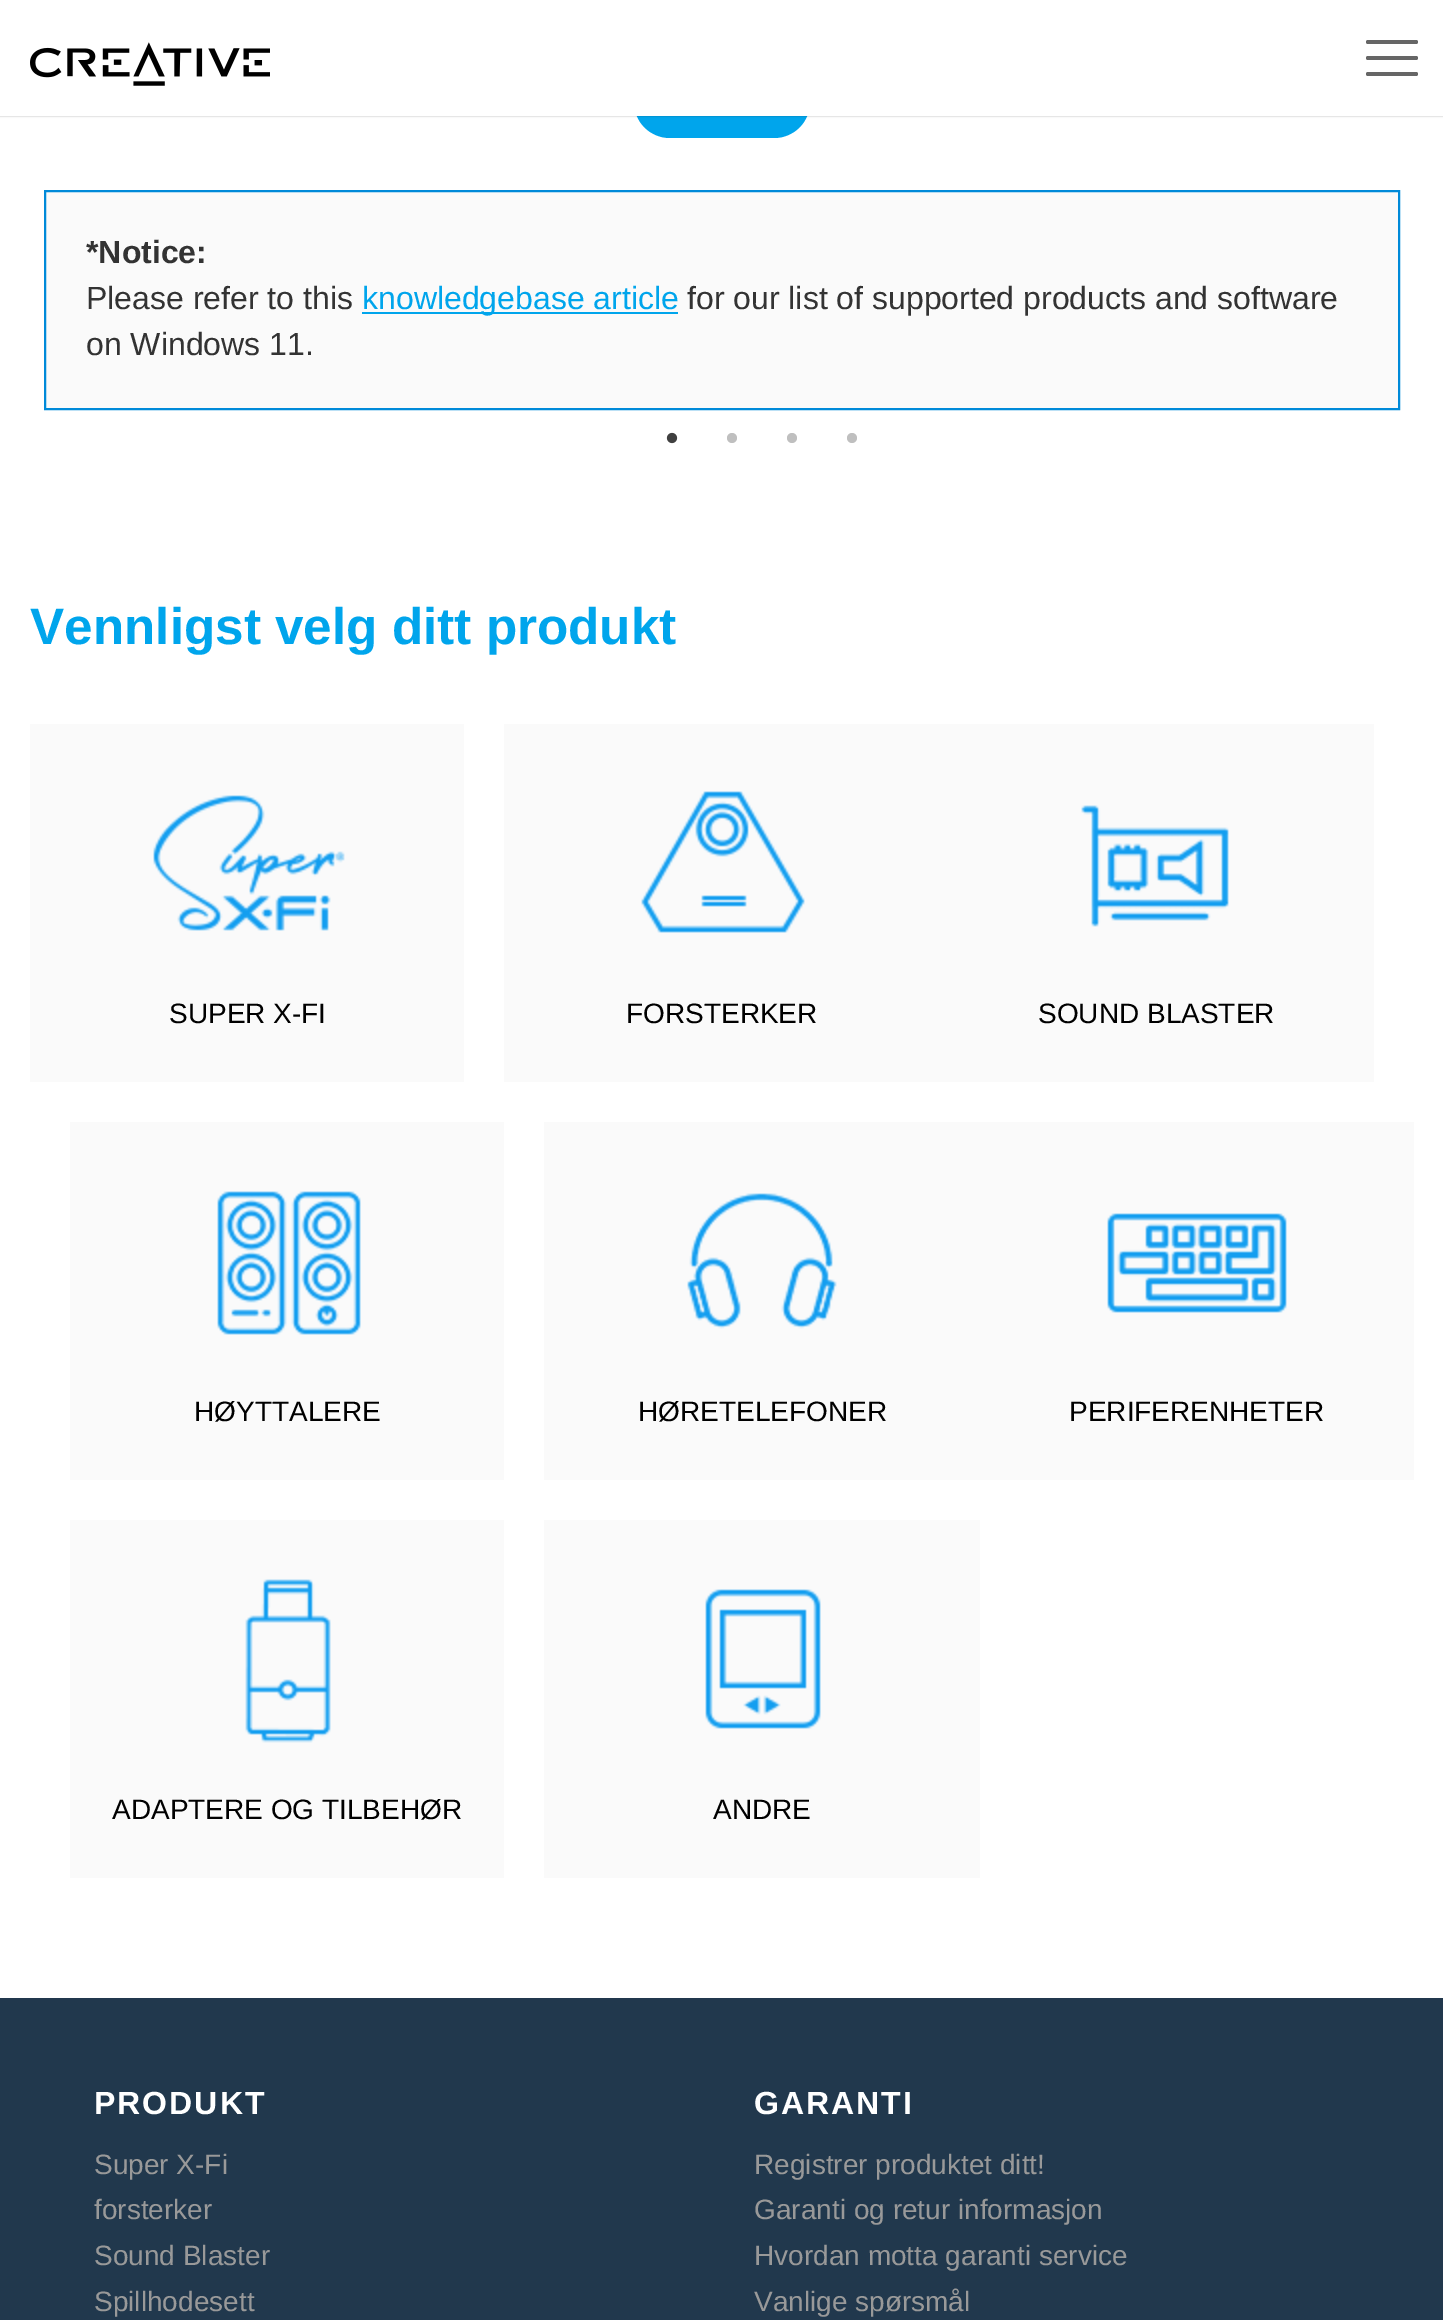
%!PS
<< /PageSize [1443 2320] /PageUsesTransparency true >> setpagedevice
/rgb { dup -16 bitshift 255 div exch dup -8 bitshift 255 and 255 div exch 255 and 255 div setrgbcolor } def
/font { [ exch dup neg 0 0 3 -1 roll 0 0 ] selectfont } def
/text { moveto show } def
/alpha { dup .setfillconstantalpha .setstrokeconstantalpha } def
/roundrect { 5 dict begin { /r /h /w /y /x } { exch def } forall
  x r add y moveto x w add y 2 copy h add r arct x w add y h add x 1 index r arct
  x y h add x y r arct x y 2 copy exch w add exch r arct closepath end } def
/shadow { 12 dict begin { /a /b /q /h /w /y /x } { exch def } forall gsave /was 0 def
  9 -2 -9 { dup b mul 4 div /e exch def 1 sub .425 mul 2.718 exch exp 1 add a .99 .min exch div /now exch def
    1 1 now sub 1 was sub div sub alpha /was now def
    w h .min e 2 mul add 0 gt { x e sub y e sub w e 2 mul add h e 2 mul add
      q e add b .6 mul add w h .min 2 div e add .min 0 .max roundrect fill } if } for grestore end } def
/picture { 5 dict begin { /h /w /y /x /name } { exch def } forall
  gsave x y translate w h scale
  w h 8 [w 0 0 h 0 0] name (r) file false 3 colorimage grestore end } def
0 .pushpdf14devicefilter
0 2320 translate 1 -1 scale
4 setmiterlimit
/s1 { /LiberationSans-Bold 32 font 16#333333 rgb } def
/s2 { /LiberationSans-Regular 32 font 16#333333 rgb } def
/s3 { /LiberationSans-Regular 32 font 16#00A5EC rgb } def
/s4 { /LiberationSans-Bold 51.25 font 16#00A5EC rgb } def
/s5 { /LiberationSans-Regular 28 font 16#000000 rgb } def
/s6 { /LiberationSans-Regular 28 font 16#999999 rgb } def
16#FFFFFF rgb
0 0 1443 2320 rectfill
16#00A5EC rgb
634 66 176 72 36 roundrect fill
16#000000 rgb
0 0 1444 116 0 1 0.3 shadow
16#FFFFFF rgb
0 0 1443 116 rectfill
(pic1.raw) 30 42 240 44 picture
16#666666 rgb
1366 56 52 4 2 roundrect fill
1366 40 52 4 2 roundrect fill
1366 72 52 4 2 roundrect fill
16#FAFAFA rgb
45 191 moveto 1399 191 lineto 1399 409 lineto 45 409 lineto closepath gsave fill grestore
16#008AD9 rgb
2 setlinewidth
stroke
s1
(*Notice:) 86 263 text
s2
(Please refer to this) 86 309 text
16#00A5EC rgb
362 312 316 2 rectfill
(knowledgebase article) 362 309 text
s2
(for our list of supported products and software) 687 309 text
(on Windows 11.) 86 355 text
(pic2.raw) 666 432 12 12 picture
(pic3.raw) 727 433 10 10 picture
(pic3.raw) 787 433 10 10 picture
(pic3.raw) 847 433 10 10 picture
s4
(Vennligst velg ditt produkt) 30 644 text
16#FAFAFA rgb
30 724 434 358 rectfill
(pic4.raw) 153 795 192 136 picture
s5
(SUPER X-FI) 169 1023 text
16#FAFAFA rgb
504 724 870 358 rectfill
(pic5.raw) 641 791 164 142 picture
s5
(FORSTERKER) 626 1023 text
(pic6.raw) 1081 805 148 122 picture
(SOUND BLASTER) 1038 1023 text
16#FAFAFA rgb
70 1122 434 358 rectfill
(pic7.raw) 217 1191 144 144 picture
s5
(HØYTTALERE) 194 1421 text
16#FAFAFA rgb
544 1122 870 358 rectfill
(pic8.raw) 687 1193 150 136 picture
s5
(HØRETELEFONER) 638 1421 text
(pic9.raw) 1107 1213 180 100 picture
(PERIFERENHETER) 1069 1421 text
16#FAFAFA rgb
70 1520 434 358 rectfill
(pic10.raw) 245 1579 86 164 picture
s5
(ADAPTERE OG TILBEHØR) 112 1819 text
16#FAFAFA rgb
544 1520 436 358 rectfill
(pic11.raw) 705 1589 116 140 picture
s5
(ANDRE) 713 1819 text
16#21384D rgb
0 1998 1443 322 rectfill
/LiberationSans-Bold 32 font
16#FFFFFF rgb
94 2114 moveto 2 0 (PRODUKT) ashow
s6
(Super X-Fi) 94 2174 text
(forsterker) 94 2219 text
(Sound Blaster) 94 2265 text
(Spillhodesett) 94 2311 text
/LiberationSans-Bold 32 font
16#FFFFFF rgb
754 2114 moveto 2 0 (GARANTI) ashow
s6
(Registrer produktet ditt!) 754 2174 text
(Garanti og retur informasjon) 754 2219 text
(Hvordan motta garanti service) 754 2265 text
(Vanlige spørsmål) 754 2311 text
.poppdf14devicefilter showpage
